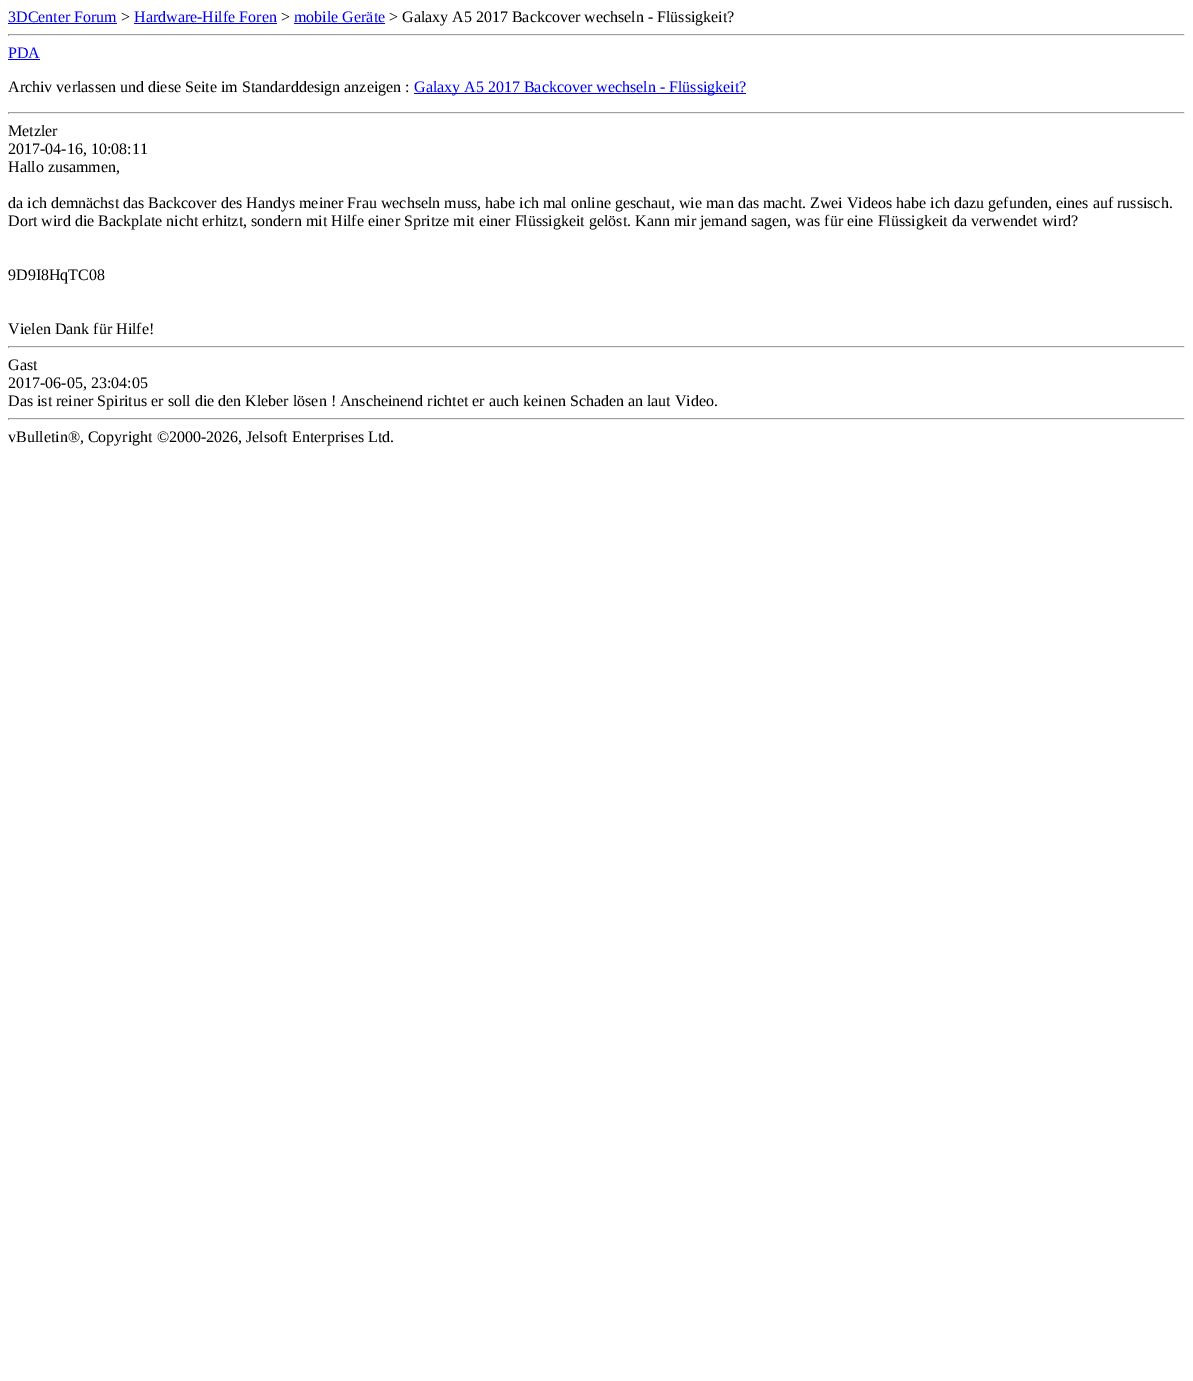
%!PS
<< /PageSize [1193 1381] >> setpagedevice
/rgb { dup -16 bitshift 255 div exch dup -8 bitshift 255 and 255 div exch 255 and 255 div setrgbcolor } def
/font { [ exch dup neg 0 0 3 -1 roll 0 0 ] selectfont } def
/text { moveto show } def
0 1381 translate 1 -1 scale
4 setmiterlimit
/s1 { /LiberationSerif-Regular 16 font 16#0000EE rgb } def
/s2 { /LiberationSerif-Regular 16 font 16#000000 rgb } def
16#FFFFFF rgb
0 0 1193 1381 rectfill
s1
(3DCenter Forum) 8 22 text
8 23 109 1 rectfill
s2
(>) 121 22 text
s1
(Hardware-Hilfe Foren) 134 22 text
134 23 143 1 rectfill
s2
(>) 281 22 text
s1
(mobile Geräte) 294 22 text
294 23 91 1 rectfill
s2
(> Galaxy A5 2017 Backcover wechseln - Flüssigkeit?) 389 22 text
16#9F9F9F rgb
8 34 1177 1 rectfill
16#EEEEEE rgb
1184 34 1 2 rectfill
8 35 1177 1 rectfill
16#9F9F9F rgb
8 34 1 2 rectfill
s1
(PDA) 8 58 text
8 59 32 1 rectfill
s2
(Archiv verlassen und diese Seite im Standarddesign anzeigen :) 8 92 text
16#0000EE rgb
414 93 332 1 rectfill
(Galaxy A5 2017 Backcover wechseln - Flüssigkeit?) 414 92 text
16#9F9F9F rgb
8 112 1177 1 rectfill
16#EEEEEE rgb
1184 112 1 2 rectfill
8 113 1177 1 rectfill
16#9F9F9F rgb
8 112 1 2 rectfill
s2
(Metzler) 8 136 text
(2017-04-16, 10:08:11) 8 154 text
(Hallo zusammen,) 8 172 text
(da ich demnächst das Backcover des Handys meiner Frau wechseln muss, habe ich mal online geschaut, wie man das macht. Zwei Videos habe ich dazu gefunden, eines auf russisch.) 8 208 text
(Dort wird die Backplate nicht erhitzt, sondern mit Hilfe einer Spritze mit einer Flüssigkeit gelöst. Kann mir jemand sagen, was für eine Flüssigkeit da verwendet wird?) 8 226 text
(9D9I8HqTC08) 8 280 text
(Vielen Dank für Hilfe!) 8 334 text
16#9F9F9F rgb
8 346 1177 1 rectfill
16#EEEEEE rgb
1184 346 1 2 rectfill
8 347 1177 1 rectfill
16#9F9F9F rgb
8 346 1 2 rectfill
s2
(Gast) 8 370 text
(2017-06-05, 23:04:05) 8 388 text
(Das ist reiner Spiritus er soll die den Kleber lösen ! Anscheinend richtet er auch keinen Schaden an laut Video.) 8 406 text
16#9F9F9F rgb
8 418 1177 1 rectfill
16#EEEEEE rgb
1184 418 1 2 rectfill
8 419 1177 1 rectfill
16#9F9F9F rgb
8 418 1 2 rectfill
s2
(vBulletin®, Copyright ©2000-2026, Jelsoft Enterprises Ltd.) 8 442 text
showpage
